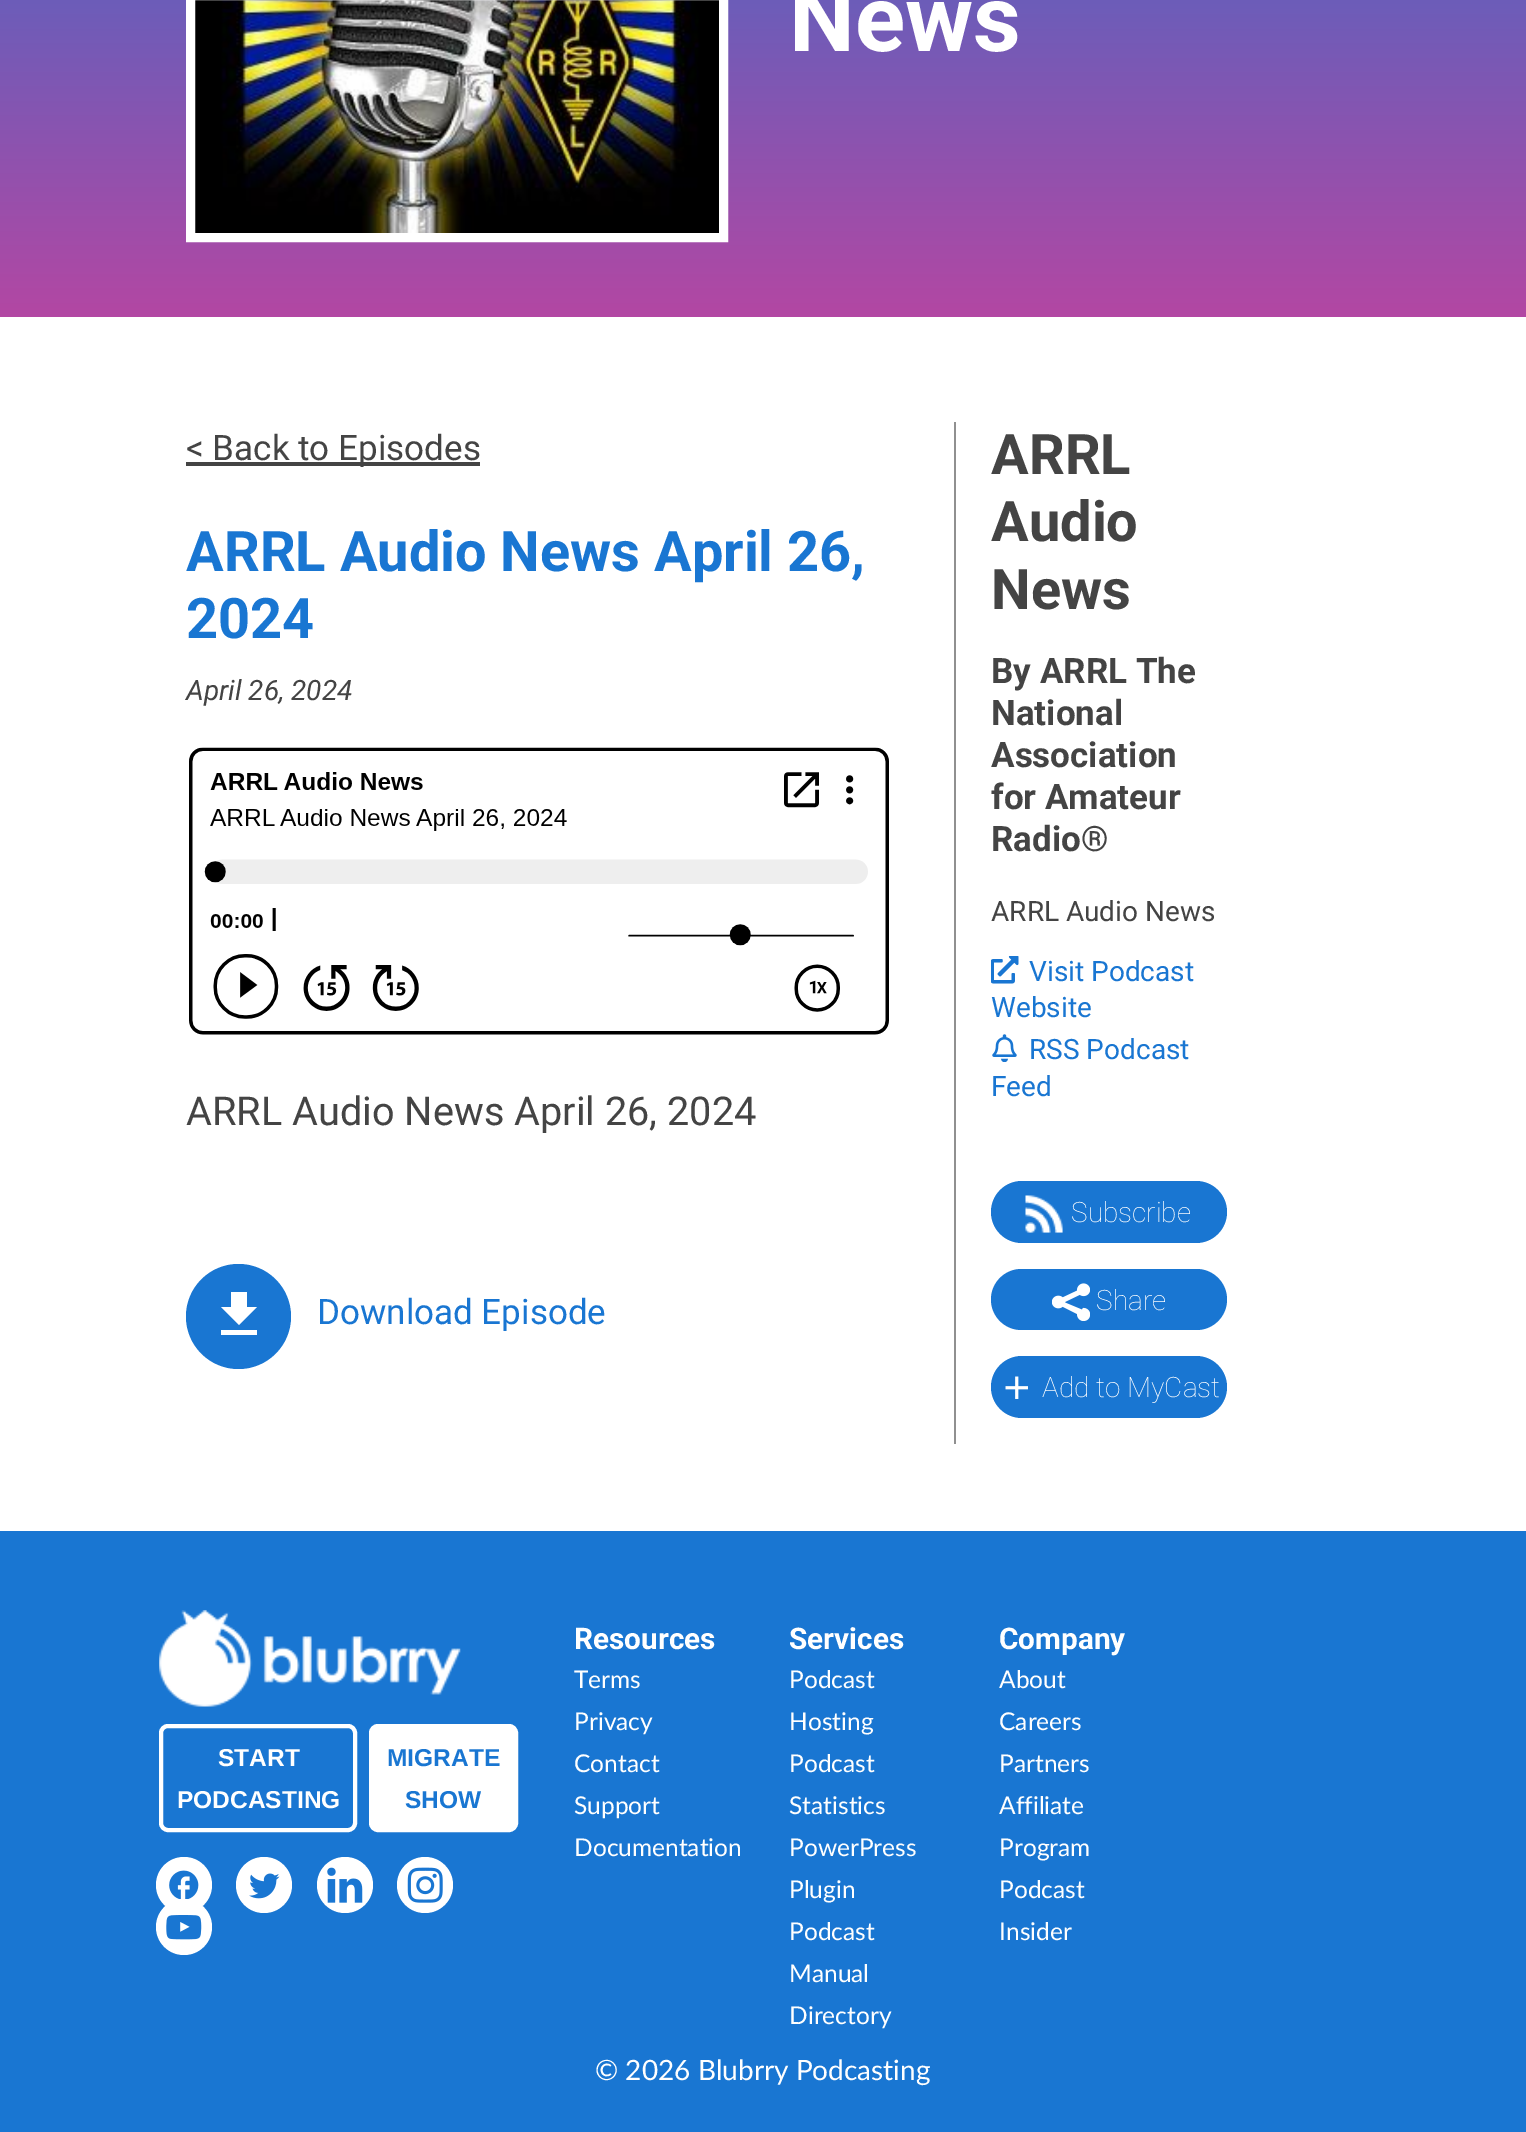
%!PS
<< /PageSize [1526 2132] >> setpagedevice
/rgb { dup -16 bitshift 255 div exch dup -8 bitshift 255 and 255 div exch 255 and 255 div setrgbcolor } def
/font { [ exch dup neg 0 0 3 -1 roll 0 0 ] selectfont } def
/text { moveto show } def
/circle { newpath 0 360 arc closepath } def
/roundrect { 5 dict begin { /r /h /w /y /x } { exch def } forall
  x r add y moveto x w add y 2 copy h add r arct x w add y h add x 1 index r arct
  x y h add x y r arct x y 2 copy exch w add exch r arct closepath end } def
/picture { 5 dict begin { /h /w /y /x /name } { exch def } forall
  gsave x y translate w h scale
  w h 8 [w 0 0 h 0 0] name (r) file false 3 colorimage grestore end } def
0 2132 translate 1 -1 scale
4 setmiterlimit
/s1 { /Roboto-Bold 93 font 16#FFFFFF rgb } def
/s2 { /Roboto-Regular 35 font 16#444444 rgb } def
/s3 { /Roboto-Bold 56 font 16#1976D2 rgb } def
/s4 { /Roboto-Italic 28 font 16#444444 rgb } def
/s5 { /Roboto-Regular 39.7 font 16#444444 rgb } def
/s6 { /Roboto-Regular 35 font 16#1976D2 rgb } def
/s7 { /Roboto-Bold 56 font 16#444444 rgb } def
/s8 { /Roboto-Bold 35 font 16#444444 rgb } def
/s9 { /Roboto-Regular 28 font 16#444444 rgb } def
/s10 { /Roboto-Regular 28 font 16#1976D2 rgb } def
/s11 { /Roboto-Thin 28 font 16#FFFFFF rgb } def
/s12 { /LiberationSans-Bold 24.5 font 16#FFFFFF rgb } def
/s13 { /LiberationSans-Bold 24.5 font 16#1976D2 rgb } def
/s14 { /Roboto-Bold 29.75 font 16#FFFFFF rgb } def
/s15 { /Lato-Regular 24.5 font 16#FFFFFF rgb } def
/s16 { /Lato-Regular 28 font 16#FFFFFF rgb } def
16#FFFFFF rgb
0 0 1526 2132 rectfill
gsave 0 0 moveto 1526 0 lineto 1526 317 lineto 0 317 lineto closepath clip newpath
<< /ShadingType 2 /ColorSpace /DeviceRGB /Coords [763 -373 763 317] /Extend [true true] /Function << /FunctionType 2 /Domain [0 1] /C0 [0.098 0.463 0.824] /C1 [0.702 0.278 0.639] /N 1 >> >> shfill grestore
(pic1.raw) 195 0 524 233 picture
9 setlinewidth
190.5 -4.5 533 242 rectstroke
s1
(News) 789 51 text
16#909090 rgb
954 422 2 1022 rectfill
16#444444 rgb
186 462 294 4 rectfill
s2
(< Back to Episodes) 186 460 text
s3
(ARRL Audio News April 26,) 186 571 text
(2024) 186 638 text
s4
(April 26, 2024) 186 700 text
(pic2.raw) 189 747 700 288 picture
s5
(ARRL Audio News April 26, 2024) 186 1125 text
16#1976D2 rgb
238.5 1316.5 52.5 circle fill
16#FFFFFF rgb
257 1307 moveto 247 1307 lineto 247 1292 lineto 231 1292 lineto 231 1307 lineto 221 1307 lineto 239 1325 lineto closepath 221 1330 moveto 221 1335 lineto 257 1335 lineto 257 1330 lineto closepath fill
s6
(Download Episode) 317 1324 text
s7
(ARRL) 991 474 text
(Audio) 991 541 text
(News) 991 609 text
s8
(By ARRL The) 991 683 text
(National) 991 725 text
(Association) 991 767 text
(for Amateur) 991 809 text
(Radio®) 991 851 text
s9
(ARRL Audio News) 991 921 text
(pic3.raw) 991 956 28 28 picture
s10
(Visit Podcast) 1029 981 text
(Website) 991 1017 text
(pic4.raw) 992 1034 25 28 picture
(RSS Podcast) 1029 1059 text
(Feed) 991 1096 text
991 1181 236 62 31 roundrect fill
(pic5.raw) 1025 1195 38 38 picture
s11
(Subscribe) 1071 1222 text
16#1976D2 rgb
991 1269 236 61 30.5 roundrect fill
(pic6.raw) 1052 1283 38 38 picture
s11
(Share) 1096 1310 text
16#1976D2 rgb
991 1356 236 62 31 roundrect fill
(pic7.raw) 1005 1376 23 23 picture
s11
(Add to MyCast) 1042 1397 text
16#1976D2 rgb
0 1531 1526 601 rectfill
(pic8.raw) 159 1610 302 97 picture
16#FFFFFF rgb
4 setlinewidth
161 1726 194 104 7 roundrect stroke
s12
(START) 218 1766 text
(PODCASTING) 177 1808 text
371 1726 145 104 7 roundrect gsave fill grestore
stroke
s13
(MIGRATE) 387 1766 text
(SHOW) 405 1808 text
16#FFFFFF rgb
184 1885 28 circle fill
264 1885 28 circle fill
345 1885 28 circle fill
425 1885 28 circle fill
(pic9.raw) 169 1870 30 30 picture
(pic10.raw) 249 1873 31 26 picture
(pic11.raw) 327 1867 36 36 picture
(pic12.raw) 407 1867 36 36 picture
184 1927 28 circle fill
(pic13.raw) 166 1915 36 25 picture
s14
(Resources) 574 1649 text
s15
(Terms) 574 1688 text
(Privacy) 574 1730 text
(Contact) 574 1772 text
(Support) 574 1814 text
(Documentation) 574 1856 text
s14
(Services) 789 1649 text
s15
(Podcast) 789 1688 text
(Hosting) 789 1730 text
(Podcast) 789 1772 text
(Statistics) 789 1814 text
(PowerPress) 789 1856 text
(Plugin) 789 1898 text
(Podcast) 789 1940 text
(Manual) 789 1982 text
(Directory) 789 2024 text
s14
(Company) 999 1649 text
s15
(About) 999 1688 text
(Careers) 999 1730 text
(Partners) 999 1772 text
(Affiliate) 999 1814 text
(Program) 999 1856 text
(Podcast) 999 1898 text
(Insider) 999 1940 text
s16
(© 2026 Blubrry Podcasting) 595 2080 text
showpage
